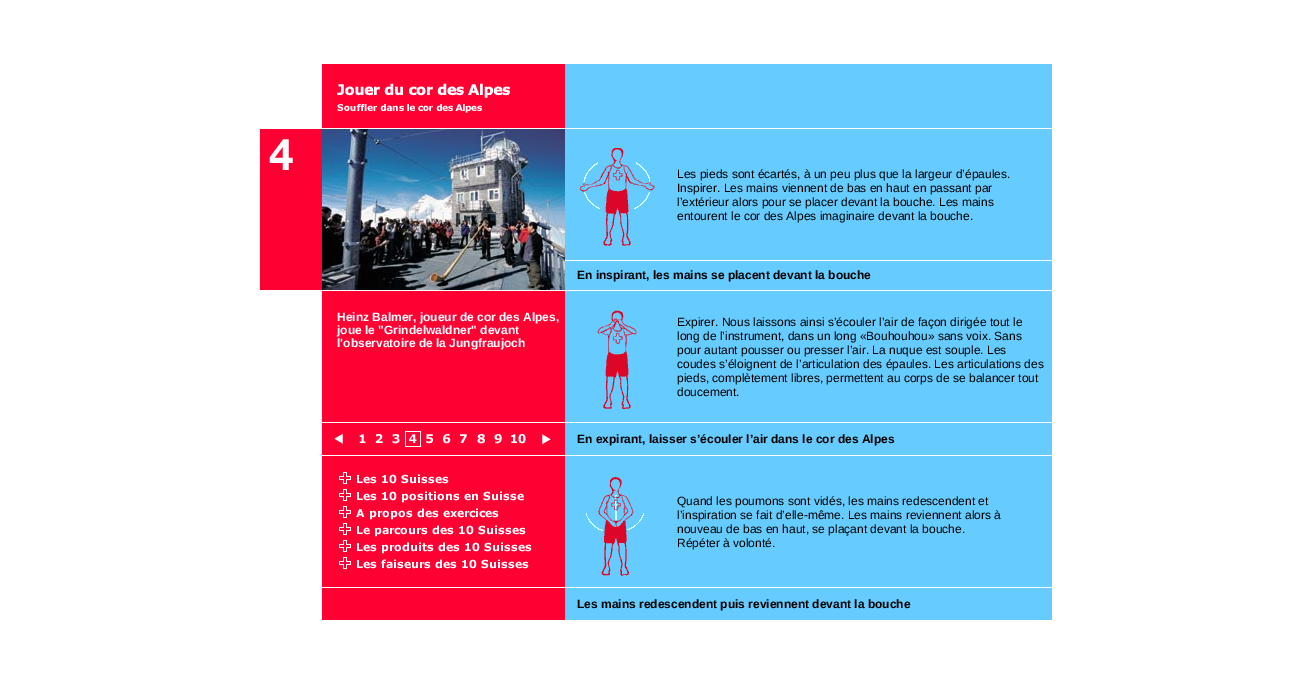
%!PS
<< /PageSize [1311 683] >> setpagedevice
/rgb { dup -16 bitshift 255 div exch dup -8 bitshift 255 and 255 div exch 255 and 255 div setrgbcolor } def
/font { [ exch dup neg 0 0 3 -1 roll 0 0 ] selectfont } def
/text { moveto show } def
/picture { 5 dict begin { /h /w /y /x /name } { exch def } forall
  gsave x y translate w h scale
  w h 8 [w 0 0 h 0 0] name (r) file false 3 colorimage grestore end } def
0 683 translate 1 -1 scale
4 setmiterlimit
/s1 { /LiberationSans-Regular 12 font 16#000000 rgb } def
/s2 { /LiberationSans-Bold 12 font 16#000000 rgb } def
/s3 { /LiberationSans-Bold 12 font 16#FFFFFF rgb } def
16#FFFFFF rgb
0 0 1311 683 rectfill
16#FF0033 rgb
322 64 243 64 rectfill
(pic1.raw) 337 83 173 30 picture
16#66CCFF rgb
565 64 487 64 rectfill
(pic2.raw) 260 129 62 161 picture
(pic3.raw) 322 129 243 161 picture
565 129 487 1 rectfill
(pic4.raw) 565 130 112 130 picture
677 130 375 130 rectfill
s1
(Les pieds sont écartés, à un peu plus que la largeur d’épaules.) 677 178 text
(Inspirer. Les mains viennent de bas en haut en passant par) 677 192 text
(l’extérieur alors pour se placer devant la bouche. Les mains) 677 206 text
(entourent le cor des Alpes imaginaire devant la bouche.) 677 220 text
16#66CCFF rgb
565 261 487 29 rectfill
s2
(En inspirant, les mains se placent devant la bouche) 577 279 text
16#FF0033 rgb
322 291 243 131 rectfill
s3
(Heinz Balmer, joueur de cor des Alpes,) 337 321 text
(joue le "Grindelwaldner" devant) 337 334 text
(l'observatoire de la Jungfraujoch) 337 347 text
16#66CCFF rgb
565 291 487 1 rectfill
(pic5.raw) 565 292 112 130 picture
677 292 375 130 rectfill
s1
(Expirer. Nous laissons ainsi s’écouler l’air de façon dirigée tout le) 677 326 text
(long de l’instrument, dans un long «Bouhouhou» sans voix. Sans) 677 340 text
(pour autant pousser ou presser l’air. La nuque est souple. Les) 677 354 text
(coudes s’éloignent de l’articulation des épaules. Les articulations des) 677 368 text
(pieds, complètement libres, permettent au corps de se balancer tout) 677 382 text
(doucement.) 677 396 text
16#FF0033 rgb
322 423 243 32 rectfill
(pic6.raw) 334 433 9 11 picture
(pic7.raw) 359 434 7 9 picture
(pic8.raw) 375 434 8 9 picture
(pic9.raw) 392 434 8 10 picture
(pic10.raw) 405 431 16 16 picture
(pic11.raw) 426 434 7 10 picture
(pic12.raw) 443 434 8 10 picture
(pic13.raw) 460 434 7 9 picture
(pic14.raw) 477 434 8 10 picture
(pic15.raw) 494 434 8 10 picture
(pic16.raw) 511 434 15 10 picture
(pic17.raw) 542 434 9 11 picture
16#66CCFF rgb
565 423 487 32 rectfill
s2
(En expirant, laisser s’écouler l’air dans le cor des Alpes) 577 443 text
16#FF0033 rgb
322 456 243 131 rectfill
(pic18.raw) 339 472 110 12 picture
(pic19.raw) 339 489 185 14 picture
(pic20.raw) 339 506 160 14 picture
(pic21.raw) 339 523 187 14 picture
(pic22.raw) 339 540 193 14 picture
(pic23.raw) 339 557 190 12 picture
16#66CCFF rgb
565 456 487 131 rectfill
(pic24.raw) 586 477 58 99 picture
s1
(Quand les poumons sont vidés, les mains redescendent et) 677 505 text
(l’inspiration se fait d’elle-même. Les mains reviennent alors à) 677 519 text
(nouveau de bas en haut, se plaçant devant la bouche.) 677 533 text
(Répéter à volonté.) 677 547 text
16#FF0033 rgb
322 588 243 32 rectfill
16#66CCFF rgb
565 588 487 32 rectfill
s2
(Les mains redescendent puis reviennent devant la bouche) 577 608 text
showpage
